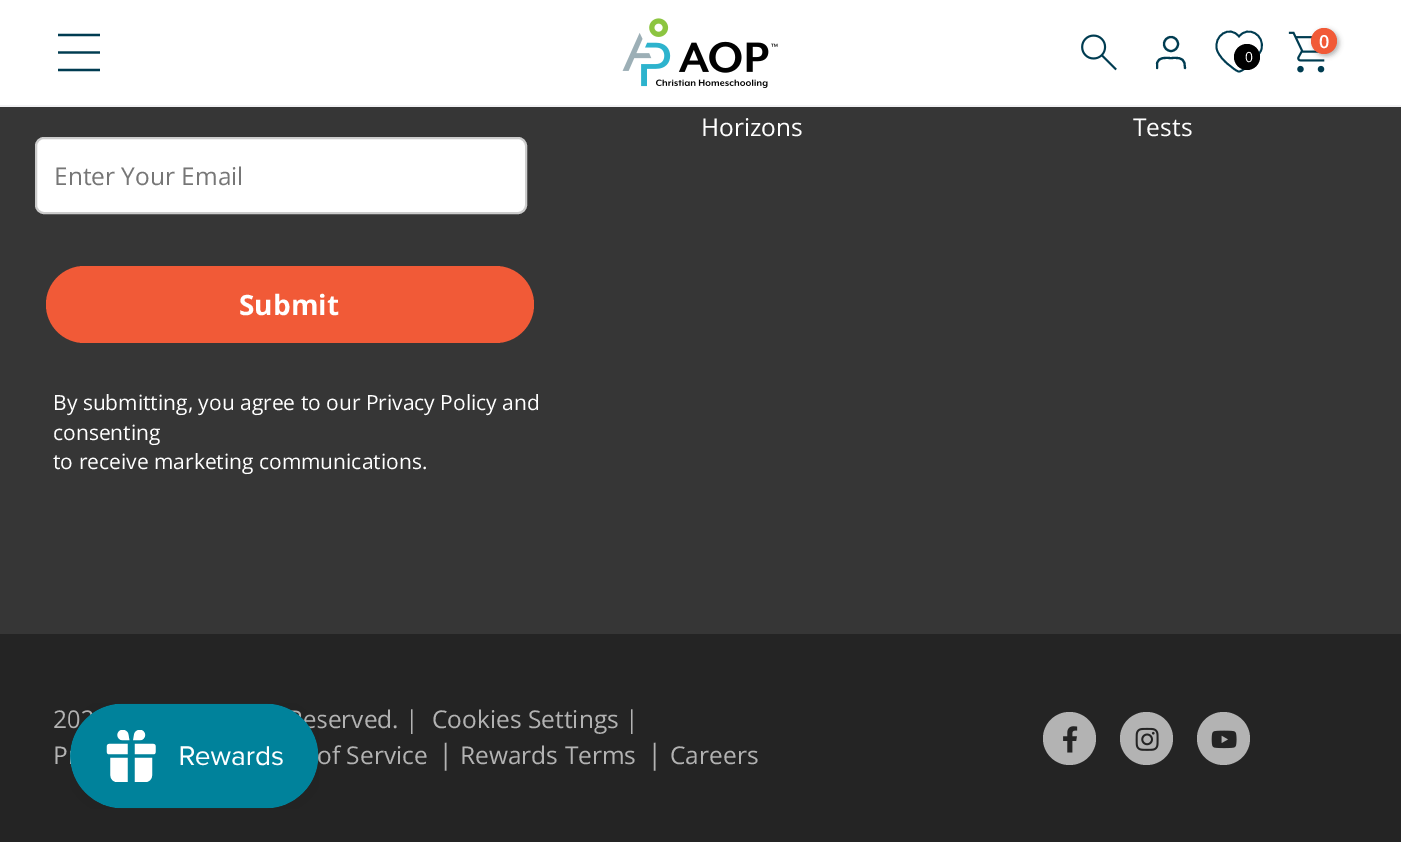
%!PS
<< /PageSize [1401 842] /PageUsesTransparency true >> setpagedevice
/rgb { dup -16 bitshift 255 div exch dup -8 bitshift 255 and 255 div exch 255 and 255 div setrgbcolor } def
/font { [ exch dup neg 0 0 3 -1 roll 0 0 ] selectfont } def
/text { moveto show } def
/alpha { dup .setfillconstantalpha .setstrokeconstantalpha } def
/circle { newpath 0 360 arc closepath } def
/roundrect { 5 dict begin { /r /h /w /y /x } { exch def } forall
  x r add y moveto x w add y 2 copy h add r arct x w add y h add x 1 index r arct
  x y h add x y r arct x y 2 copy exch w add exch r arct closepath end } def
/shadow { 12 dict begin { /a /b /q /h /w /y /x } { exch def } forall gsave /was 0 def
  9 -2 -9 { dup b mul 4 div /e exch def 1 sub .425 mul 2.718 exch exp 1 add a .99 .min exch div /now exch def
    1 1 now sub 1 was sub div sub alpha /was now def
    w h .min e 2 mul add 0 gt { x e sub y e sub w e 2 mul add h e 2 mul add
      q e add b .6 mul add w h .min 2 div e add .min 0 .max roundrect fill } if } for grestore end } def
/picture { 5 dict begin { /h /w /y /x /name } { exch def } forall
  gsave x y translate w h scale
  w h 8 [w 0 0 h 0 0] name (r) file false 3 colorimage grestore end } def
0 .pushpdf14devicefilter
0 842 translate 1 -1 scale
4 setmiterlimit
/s1 { /OpenSans-SemiBold 18 font 16#FFFFFF rgb } def
/s2 { /OpenSans-Regular 14 font 16#FFFFFF rgb } def
/s3 { /OpenSans-Regular 24.5 font 16#FFFFFF rgb } def
/s4 { /OpenSans-Regular 24.5 font 16#767676 rgb } def
/s5 { /OpenSans-Bold 28 font 16#FFFFFF rgb } def
/s6 { /OpenSans-Regular 21 font 16#FFFFFF rgb } def
/s7 { /OpenSans-Regular 24.5 font 16#B3B3B3 rgb } def
/s8 { /OpenSans-Regular 28 font 16#B3B3B3 rgb } def
16#363636 rgb
0 0 1401 842 rectfill
16#F2F2F4 rgb
0 105 1401 2 rectfill
16#FFFFFF rgb
0 0 1401 105 rectfill
16#003C51 rgb
2.2 setlinewidth
58 35 moveto 100 35 lineto 58 52.5 moveto 100 52.5 lineto 58 70 moveto 100 70 lineto stroke
(pic1.raw) 622 18 156 70 picture
(pic2.raw) 1081 34 36 37 picture
2.1 setlinewidth
1171 44 7 circle stroke
1 setlinecap
1 setlinejoin
1185 68 moveto 1184.5 63.5 lineto 1183 56.5 1176 58 1171 58 curveto 1165.5 58 1158.5 56.5 1157 63.5 curveto 1157 68 lineto stroke
(pic3.raw) 1288 31 37 42 picture
16#000000 rgb
1313 30 26 26 13 2.5 0.3 shadow
16#F15A37 rgb
1324 41 13 circle fill
s1
(0) 1319 48 text
16#003C51 rgb
1.8 setlinewidth
0 setlinecap
0 setlinejoin
1239 71.5 moveto 1236.5 71.5 1231 66.5 1229 65 curveto 1224.5 61.5 1219 56 1217 50 curveto 1213 36 1229.5 24.5 1239 36.5 curveto 1248 25 1265 35 1261.5 49 curveto 1259.5 55.5 1254.5 60.5 1249 65 curveto 1248 66 1242 71.5 1239 71.5 curveto closepath stroke
16#000000 rgb
1247 57 13 circle fill
s2
(0) 1245 62 text
s3
(Horizons) 701 136 text
(Tests) 1133 136 text
36 138 490 75 8 roundrect gsave fill grestore
16#CCCCCC rgb
2 setlinewidth
stroke
s4
(Enter Your Email) 54 185 text
16#F15A37 rgb
46 266 488 77 38.5 roundrect fill
s5
(Submit) 239 315 text
s6
(By submitting, you agree to our Privacy Policy and) 53 410 text
(consenting) 53 440 text
(to receive marketing communications.) 53 469 text
16#242424 rgb
0 634 1401 208 rectfill
s7
(20) 53 728 text
(served. |) 316 728 text
(Cookies Settings |) 432 728 text
(P) 53 764 text
(of Service) 317 764 text
s8
(|) 438 764 text
s7
(Rewards Terms) 460 764 text
s8
(|) 647 764 text
s7
(Careers) 670 764 text
1069.5 738.5 26.5 circle fill
(pic4.raw) 1063 726 15 27 picture
1146.5 738.5 26.5 circle fill
(pic5.raw) 1135 727 24 24 picture
1223.5 738.5 26.5 circle fill
(pic6.raw) 1211 730 26 19 picture
(pic7.raw) 70 703 249 106 picture
.poppdf14devicefilter showpage
